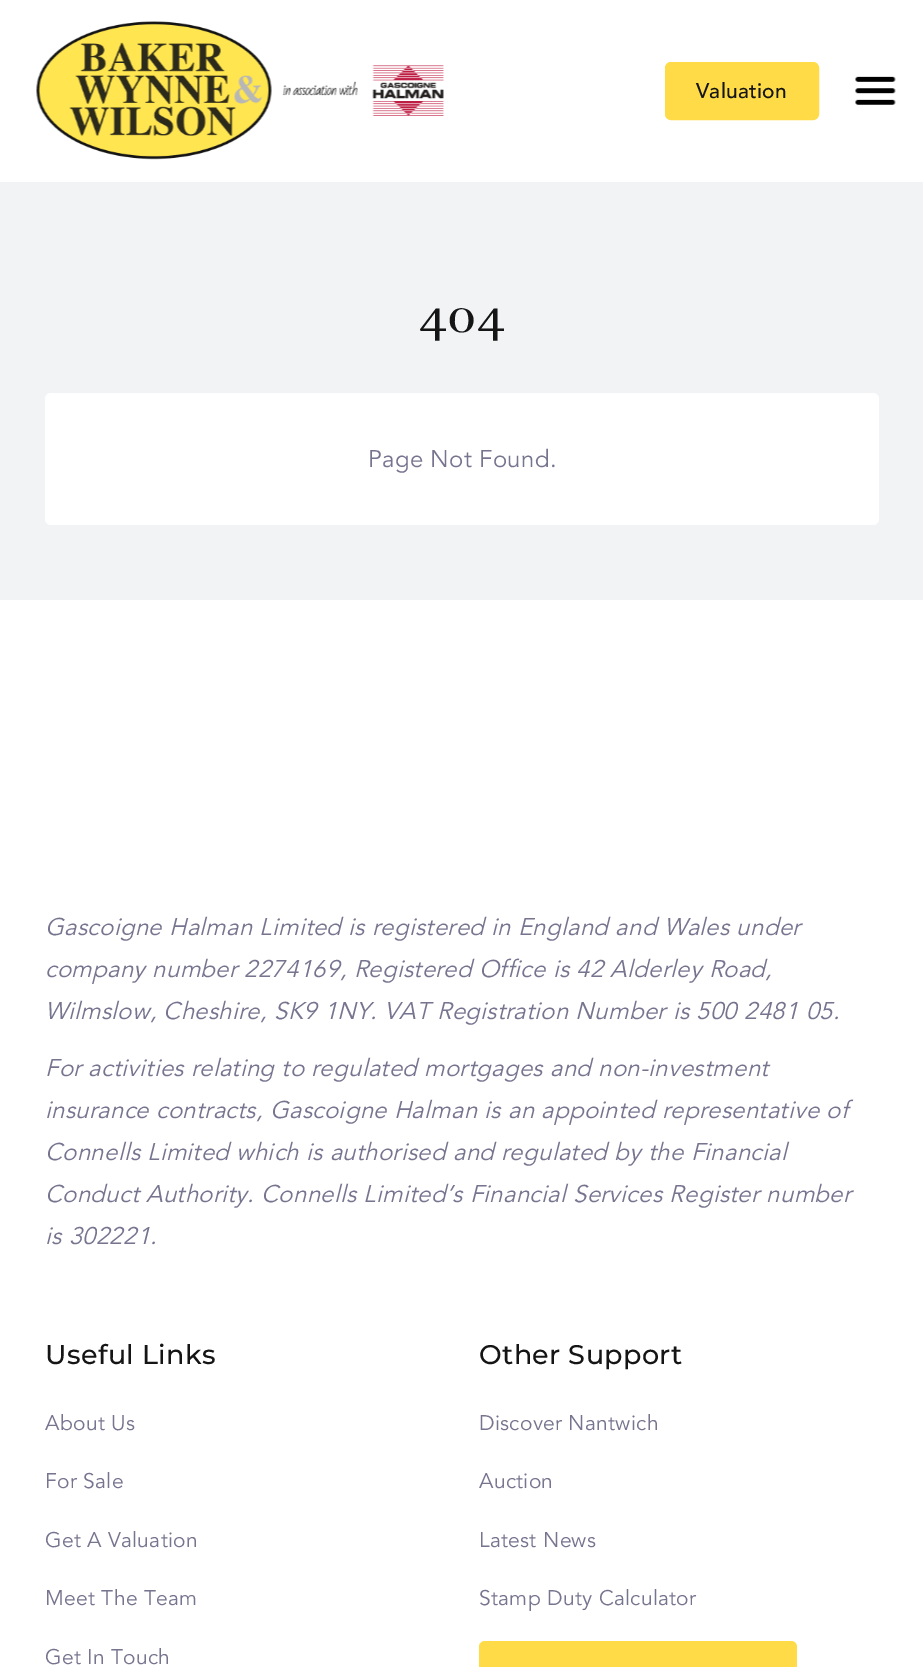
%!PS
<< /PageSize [923 1667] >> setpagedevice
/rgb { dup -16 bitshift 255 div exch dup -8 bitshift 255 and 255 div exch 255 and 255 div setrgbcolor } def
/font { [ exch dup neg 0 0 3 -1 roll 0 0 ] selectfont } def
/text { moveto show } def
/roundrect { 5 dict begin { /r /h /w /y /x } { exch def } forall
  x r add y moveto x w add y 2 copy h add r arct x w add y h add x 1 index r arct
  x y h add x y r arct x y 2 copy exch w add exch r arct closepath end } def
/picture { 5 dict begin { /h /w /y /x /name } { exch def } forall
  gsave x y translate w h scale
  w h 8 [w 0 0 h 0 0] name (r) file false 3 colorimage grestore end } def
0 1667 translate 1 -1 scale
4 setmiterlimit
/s1 { /Rufina-Regular 48 font 16#151515 rgb } def
16#F1F3F5 rgb
0 0 923 1667 rectfill
16#FFFFFF rgb
0 0 923 182 rectfill
(pic1.raw) 36 21 408 139 picture
16#FFDB47 rgb
666 63 152 56 5 roundrect gsave fill grestore
2 setlinewidth
stroke
/Avenir-Medium 21 font
16#151515 rgb
696 98 moveto 0.25 0 (Valuation) ashow
(pic2.raw) 855 76 41 29 picture
s1
(404) 419 332 text
16#FFFFFF rgb
45 393 834 132 6 roundrect fill
/Avenir-Regular 24 font
16#76748F rgb
368 467 moveto 0.3 0 (Page Not Found.) ashow
16#FFFFFF rgb
0 600 923 1067 rectfill
/Avenir-Italic 24 font
16#76748F rgb
45 935 moveto 0.3 0 (Gascoigne Halman Limited is registered in England and Wales under) ashow
45 977 moveto 0.3 0 (company number 2274169, Registered Office is 42 Alderley Road,) ashow
45 1019 moveto 0.3 0 (Wilmslow, Cheshire, SK9 1NY. VAT Registration Number is 500 2481 05.) ashow
45 1076 moveto 0.3 0 (For activities relating to regulated mortgages and non-investment) ashow
45 1118 moveto 0.3 0 (insurance contracts, Gascoigne Halman is an appointed representative of) ashow
45 1160 moveto 0.3 0 (Connells Limited which is authorised and regulated by the Financial) ashow
45 1202 moveto 0.3 0 (Conduct Authority. Connells Limited’s Financial Services Register number) ashow
45 1244 moveto 0.3 0 (is 302221.) ashow
/Montserrat-Medium 27 font
16#151515 rgb
45 1364 moveto 0.4 0 (Useful Links) ashow
/Avenir-Regular 21 font
16#76748F rgb
45 1430 moveto 0.3 0 (About Us) ashow
45 1488 moveto 0.3 0 (For Sale) ashow
45 1547 moveto 0.3 0 (Get A Valuation) ashow
45 1605 moveto 0.3 0 (Meet The Team) ashow
45 1664 moveto 0.3 0 (Get In Touch) ashow
/Montserrat-Medium 27 font
16#151515 rgb
479 1364 moveto 0.4 0 (Other Support) ashow
/Avenir-Regular 21 font
16#76748F rgb
479 1430 moveto 0.3 0 (Discover Nantwich) ashow
479 1488 moveto 0.3 0 (Auction) ashow
479 1547 moveto 0.3 0 (Latest News) ashow
479 1605 moveto 0.3 0 (Stamp Duty Calculator) ashow
16#FFDB47 rgb
479 1641 318 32 6 roundrect fill
showpage
